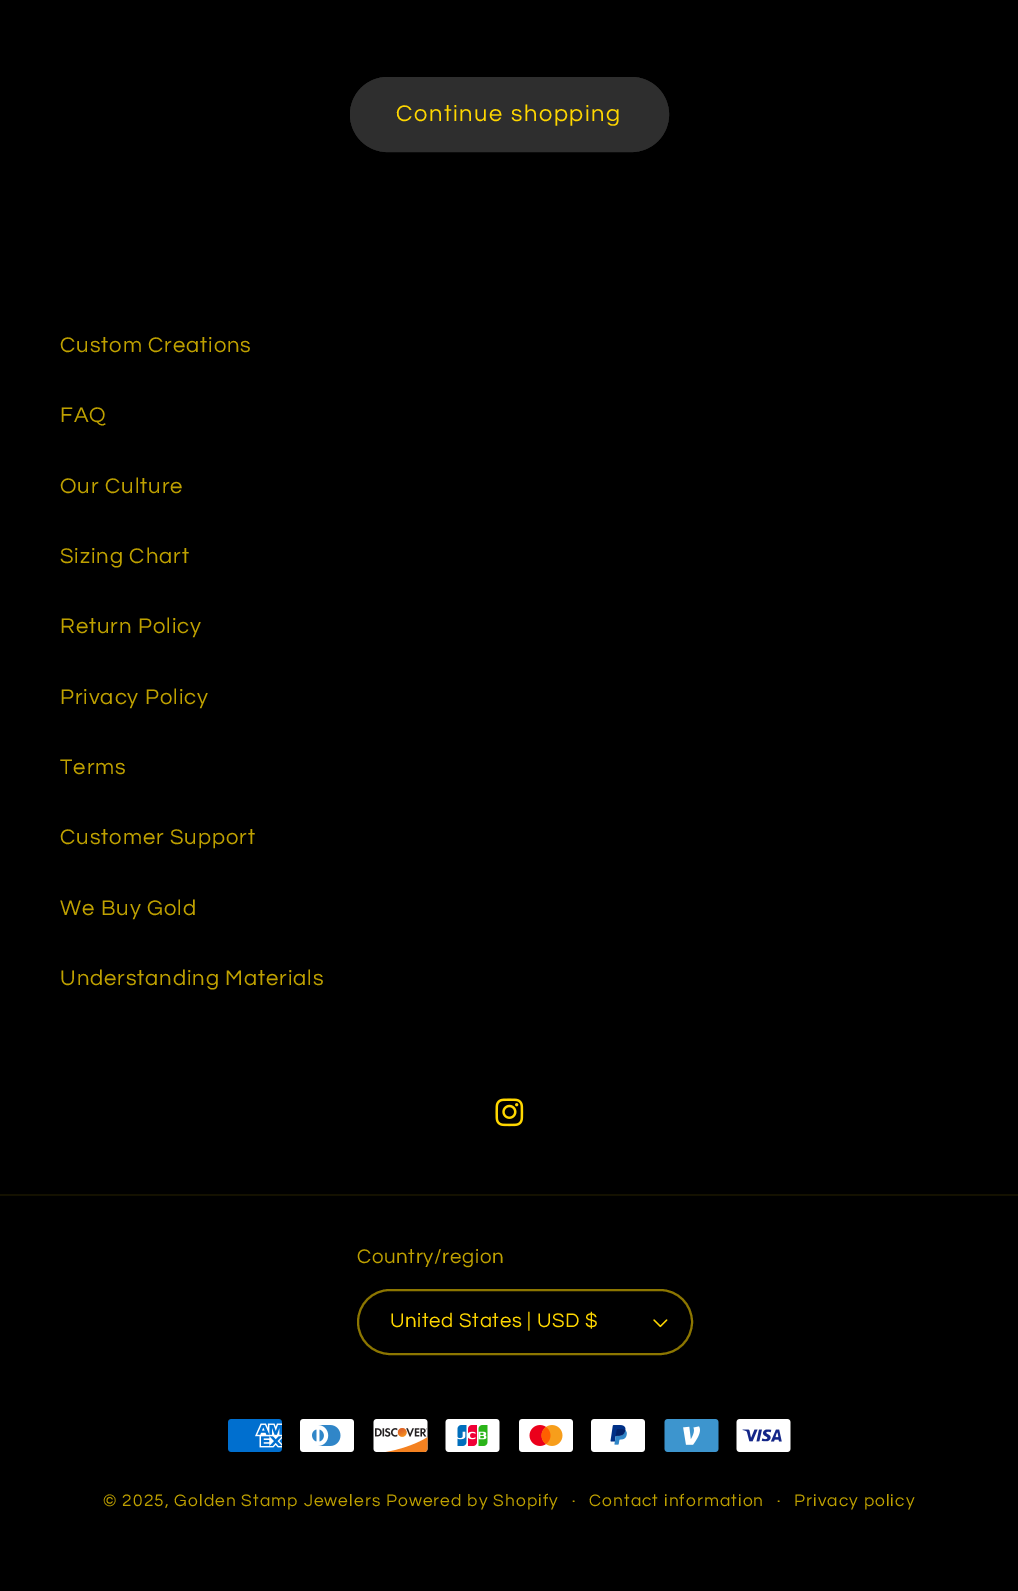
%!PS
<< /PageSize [1018 1591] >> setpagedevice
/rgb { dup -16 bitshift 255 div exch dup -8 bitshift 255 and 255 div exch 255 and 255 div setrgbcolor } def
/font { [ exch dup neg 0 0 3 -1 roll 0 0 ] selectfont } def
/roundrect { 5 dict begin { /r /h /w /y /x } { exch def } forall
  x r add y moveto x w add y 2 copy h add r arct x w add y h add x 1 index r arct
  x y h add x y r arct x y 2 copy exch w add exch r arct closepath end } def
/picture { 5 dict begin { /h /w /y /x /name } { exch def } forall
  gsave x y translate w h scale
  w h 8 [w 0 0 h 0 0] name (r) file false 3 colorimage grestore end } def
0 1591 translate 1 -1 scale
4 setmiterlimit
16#000000 rgb
0 0 1018 1591 rectfill
16#2E2E2E rgb
350 77 319 75 37.5 roundrect fill
2 setlinewidth
351 78 317 73 36.5 roundrect stroke
/Questrial-Regular 23.6 font
16#FFD700 rgb
396 121 moveto 1.6 0 (Continue shopping) ashow
/Questrial-Regular 22 font
16#BFA100 rgb
60 352 moveto 0.95 0 (Custom Creations) ashow
60 422 moveto 0.95 0 (FAQ) ashow
60 493 moveto 0.95 0 (Our Culture) ashow
60 563 moveto 0.95 0 (Sizing Chart) ashow
60 633 moveto 0.95 0 (Return Policy) ashow
60 704 moveto 0.95 0 (Privacy Policy) ashow
60 774 moveto 0.95 0 (Terms) ashow
60 844 moveto 0.95 0 (Customer Support) ashow
60 915 moveto 0.95 0 (We Buy Gold) ashow
60 985 moveto 0.95 0 (Understanding Materials) ashow
(pic1.raw) 495 1098 29 29 picture
16#141100 rgb
0 1194 1018 2 rectfill
/Questrial-Regular 20.5 font
16#BFA100 rgb
357 1263 moveto 0.6 0 (Country/region) ashow
(pic2.raw) 653 1319 15 9 picture
16#8C7600 rgb
358 1290 334 64 32 roundrect stroke
16#FFD700 rgb
390 1327 moveto 0.6 0 (United States | USD $) ashow
(pic3.raw) 228 1419 54 33 picture
(pic4.raw) 300 1419 54 33 picture
(pic5.raw) 373 1419 55 33 picture
(pic6.raw) 445 1419 55 33 picture
(pic7.raw) 519 1419 54 33 picture
(pic8.raw) 591 1419 54 33 picture
(pic9.raw) 664 1419 55 33 picture
(pic10.raw) 736 1419 55 33 picture
/Questrial-Regular 17.3 font
16#BFA100 rgb
103 1506 moveto 1.1 0 (© 2025, Golden Stamp Jewelers Powered by Shopify) ashow
/Questrial-Regular 16 font
572 1506 moveto 1.1 0 (·) ashow
/Questrial-Regular 17.3 font
589 1506 moveto 1.1 0 (Contact information) ashow
/Questrial-Regular 16 font
777 1506 moveto 1.1 0 (·) ashow
/Questrial-Regular 17.3 font
794 1506 moveto 1.1 0 (Privacy policy) ashow
showpage
